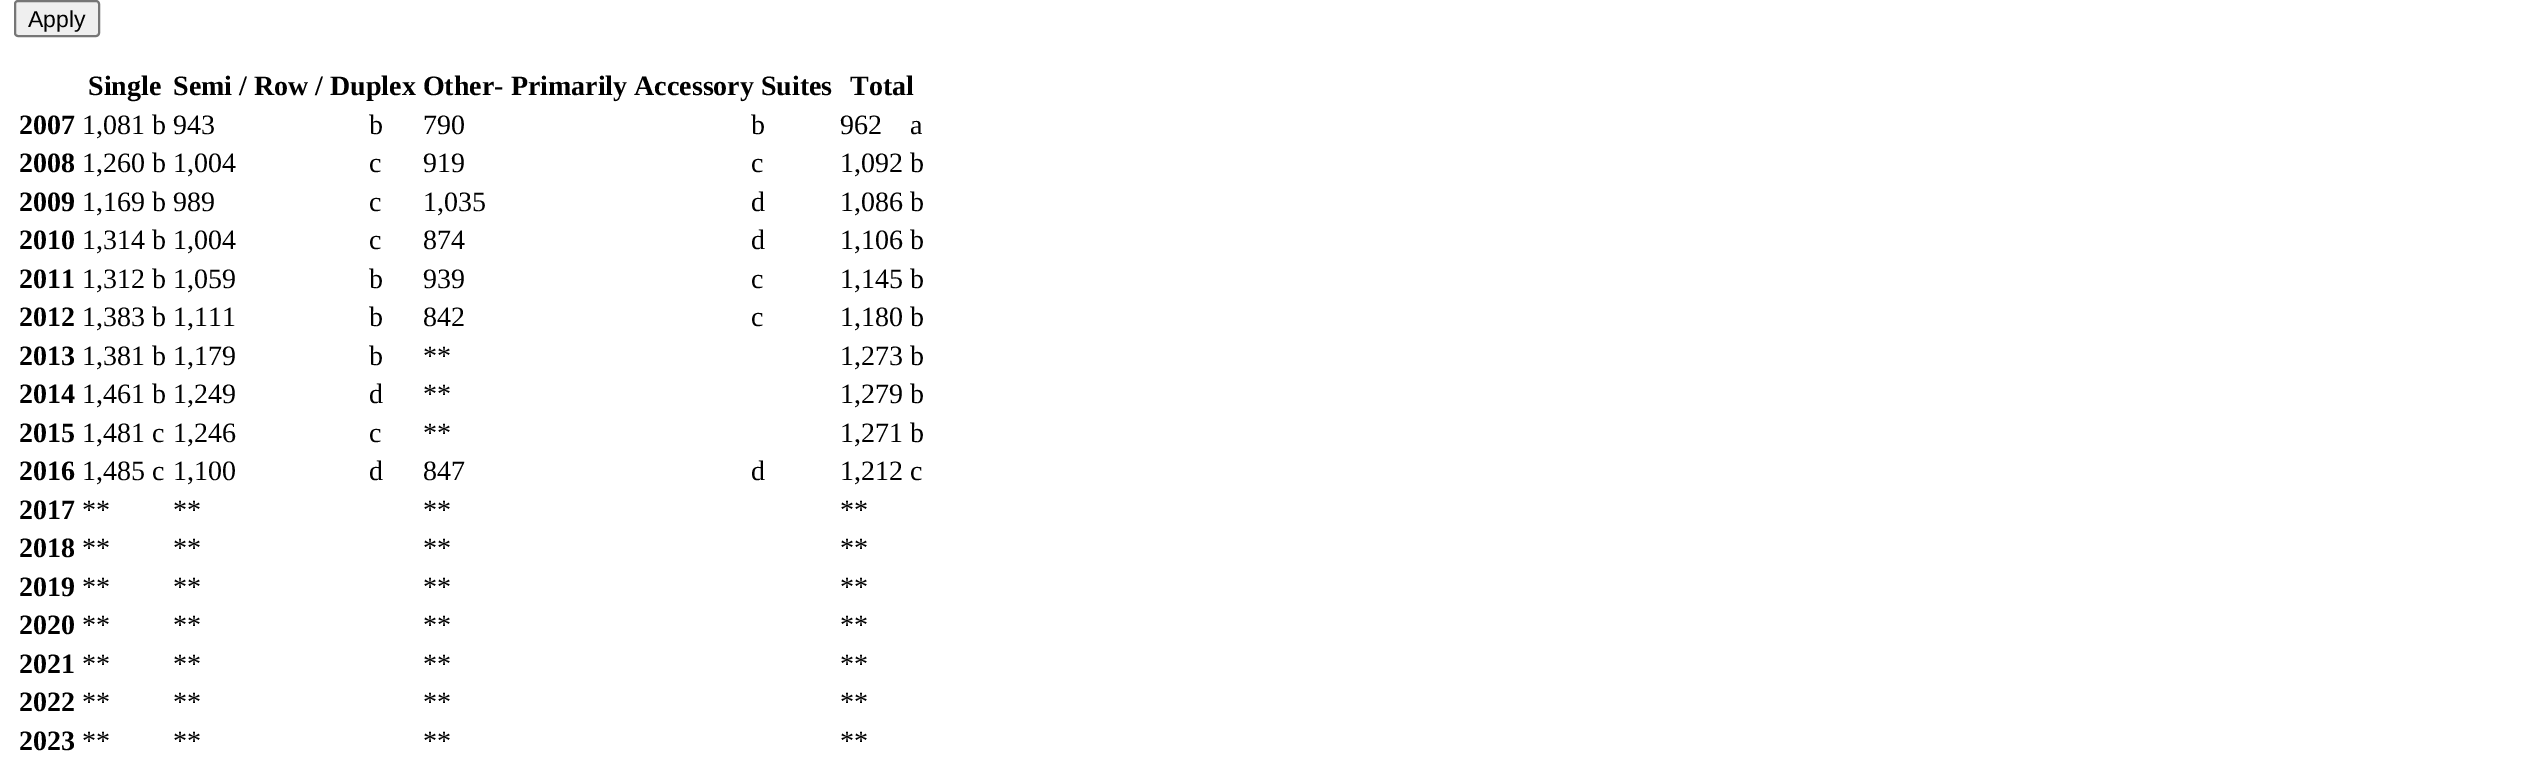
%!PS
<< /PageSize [2522 774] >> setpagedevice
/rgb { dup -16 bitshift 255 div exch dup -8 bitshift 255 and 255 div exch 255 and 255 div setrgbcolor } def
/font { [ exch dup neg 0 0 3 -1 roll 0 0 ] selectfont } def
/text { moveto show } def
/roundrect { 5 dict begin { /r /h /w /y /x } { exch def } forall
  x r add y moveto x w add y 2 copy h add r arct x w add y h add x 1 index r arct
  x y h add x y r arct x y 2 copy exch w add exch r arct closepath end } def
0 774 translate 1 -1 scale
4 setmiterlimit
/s1 { /LiberationSans-Regular 23 font 16#000000 rgb } def
/s2 { /LiberationSerif-Bold 28 font 16#000000 rgb } def
/s3 { /LiberationSerif-Regular 28 font 16#000000 rgb } def
16#FFFFFF rgb
0 0 2522 774 rectfill
16#EFEFEF rgb
15 1 84 35 3 roundrect gsave fill grestore
16#767676 rgb
2 setlinewidth
stroke
s1
(Apply) 28 27 text
s2
(Single) 88 95 text
(Semi / Row / Duplex Other- Primarily Accessory Suites) 173 95 text
(Total) 850 95 text
(2007) 19 134 text
s3
(1,081 b 943) 82 134 text
(b) 369 134 text
(790) 423 134 text
(b) 751 134 text
(962) 840 134 text
(a) 910 134 text
s2
(2008) 19 172 text
s3
(1,260 b 1,004) 82 172 text
(c) 369 172 text
(919) 423 172 text
(c) 751 172 text
(1,092 b) 840 172 text
s2
(2009) 19 211 text
s3
(1,169 b 989) 82 211 text
(c) 369 211 text
(1,035) 423 211 text
(d) 751 211 text
(1,086 b) 840 211 text
s2
(2010) 19 249 text
s3
(1,314 b 1,004) 82 249 text
(c) 369 249 text
(874) 423 249 text
(d) 751 249 text
(1,106 b) 840 249 text
s2
(2011) 19 288 text
s3
(1,312 b 1,059) 82 288 text
(b) 369 288 text
(939) 423 288 text
(c) 751 288 text
(1,145 b) 840 288 text
s2
(2012) 19 326 text
s3
(1,383 b 1,111) 82 326 text
(b) 369 326 text
(842) 423 326 text
(c) 751 326 text
(1,180 b) 840 326 text
s2
(2013) 19 365 text
s3
(1,381 b 1,179) 82 365 text
(b) 369 365 text
(**) 423 365 text
(1,273 b) 840 365 text
s2
(2014) 19 403 text
s3
(1,461 b 1,249) 82 403 text
(d) 369 403 text
(**) 423 403 text
(1,279 b) 840 403 text
s2
(2015) 19 442 text
s3
(1,481 c) 82 442 text
(1,246) 173 442 text
(c) 369 442 text
(**) 423 442 text
(1,271 b) 840 442 text
s2
(2016) 19 480 text
s3
(1,485 c) 82 480 text
(1,100) 173 480 text
(d) 369 480 text
(847) 423 480 text
(d) 751 480 text
(1,212 c) 840 480 text
s2
(2017) 19 519 text
s3
(**) 82 519 text
(**) 173 519 text
(**) 423 519 text
(**) 840 519 text
s2
(2018) 19 557 text
s3
(**) 82 557 text
(**) 173 557 text
(**) 423 557 text
(**) 840 557 text
s2
(2019) 19 596 text
s3
(**) 82 596 text
(**) 173 596 text
(**) 423 596 text
(**) 840 596 text
s2
(2020) 19 634 text
s3
(**) 82 634 text
(**) 173 634 text
(**) 423 634 text
(**) 840 634 text
s2
(2021) 19 673 text
s3
(**) 82 673 text
(**) 173 673 text
(**) 423 673 text
(**) 840 673 text
s2
(2022) 19 711 text
s3
(**) 82 711 text
(**) 173 711 text
(**) 423 711 text
(**) 840 711 text
s2
(2023) 19 750 text
s3
(**) 82 750 text
(**) 173 750 text
(**) 423 750 text
(**) 840 750 text
showpage
